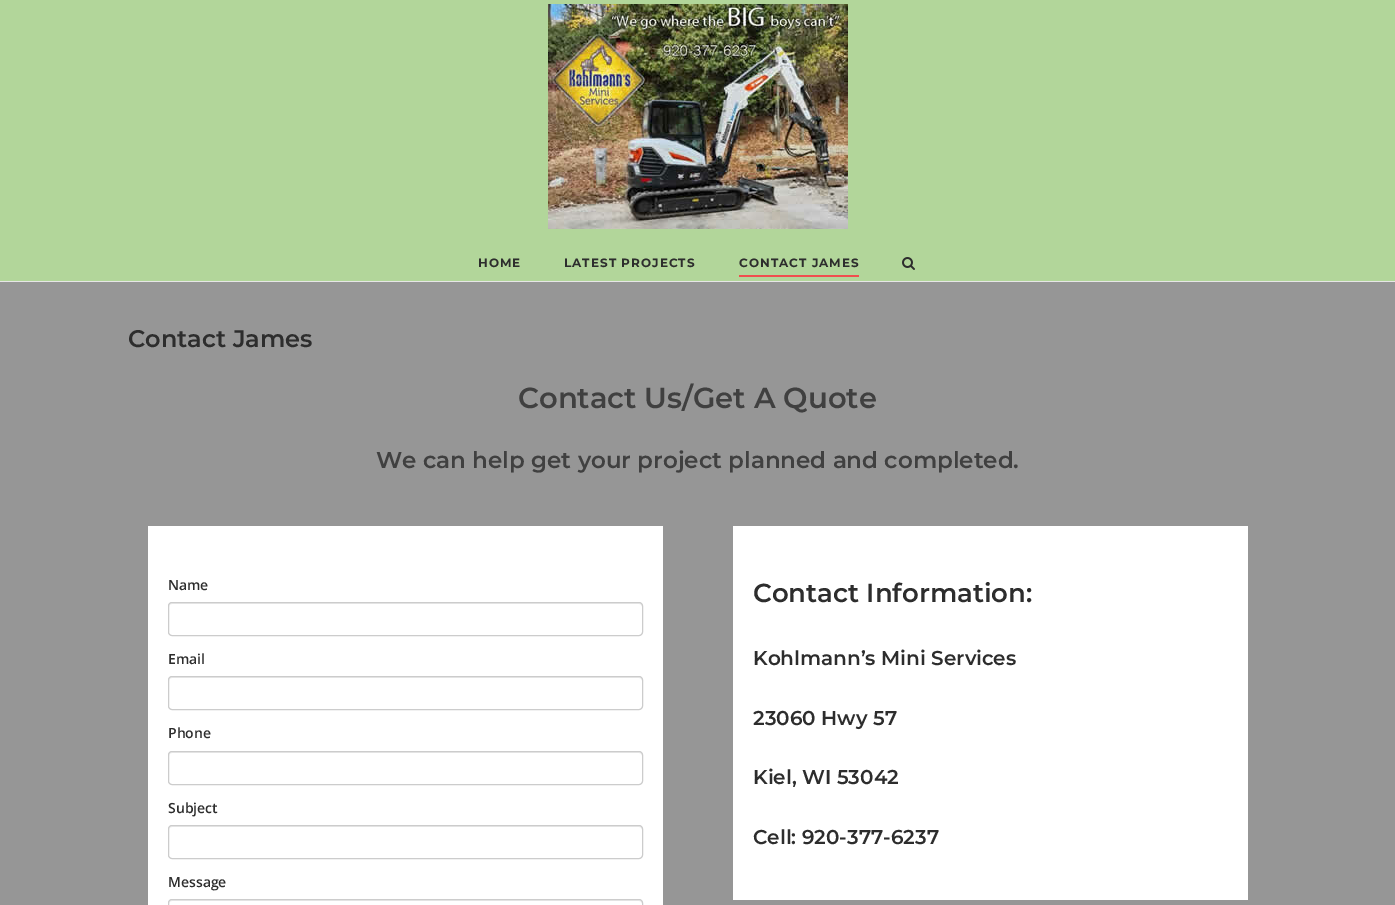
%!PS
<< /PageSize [1395 905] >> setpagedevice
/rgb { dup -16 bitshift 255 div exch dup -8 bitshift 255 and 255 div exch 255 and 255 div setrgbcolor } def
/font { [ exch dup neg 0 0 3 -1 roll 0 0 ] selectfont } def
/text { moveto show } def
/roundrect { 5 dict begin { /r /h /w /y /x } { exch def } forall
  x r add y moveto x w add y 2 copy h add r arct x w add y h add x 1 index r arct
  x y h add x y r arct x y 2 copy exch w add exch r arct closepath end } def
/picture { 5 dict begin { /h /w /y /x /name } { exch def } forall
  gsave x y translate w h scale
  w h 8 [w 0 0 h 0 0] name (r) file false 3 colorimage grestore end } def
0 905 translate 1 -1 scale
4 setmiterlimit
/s1 { /Montserrat-SemiBold 24 font 16#2D2D2D rgb } def
/s2 { /Montserrat-SemiBold 29 font 16#404040 rgb } def
/s3 { /Montserrat-SemiBold 23 font 16#404040 rgb } def
/s4 { /OpenSans-SemiBold 14 font 16#2D2D2D rgb } def
/s5 { /Montserrat-SemiBold 26 font 16#2D2D2D rgb } def
/s6 { /Montserrat-SemiBold 20 font 16#2D2D2D rgb } def
16#969696 rgb
0 0 1395 905 rectfill
16#B2D69A rgb
0 0 1395 281 rectfill
16#E6E6E6 rgb
0 281 1395 1 rectfill
(pic1.raw) 548 4 300 225 picture
/Montserrat-Bold 12 font
16#2D2D2D rgb
478 267 moveto 1 0 (HOME) ashow
564 267 moveto 1 0 (LATEST PROJECTS) ashow
16#F14E4E rgb
739 275 120 2 rectfill
16#2D2D2D rgb
739 267 moveto 1 0 (CONTACT JAMES) ashow
(pic2.raw) 902 257 13 13 picture
s1
(Contact James) 128 347 text
s2
(Contact Us/Get A Quote) 518 408 text
s3
(We can help get your project planned and completed.) 376 468 text
16#FFFFFF rgb
148 526 515 379 rectfill
s4
(Name) 168 590 text
16#ECECEC rgb
172 604 moveto 639 604 lineto 641 604 642 605 642 607 curveto 642 605 642 604 640 603 curveto 171 603 lineto 169 605 lineto 169 607 lineto 169 605 170 604 172 604 curveto closepath fill
16#CCCCCC rgb
168.5 602.5 474 33 3.5 roundrect stroke
s4
(Email) 168 664 text
16#ECECEC rgb
172 678 moveto 639 678 lineto 641 678 642 679 642 681 curveto 642 679 lineto 640 677 lineto 171 677 lineto 169 678 169 679 169 681 curveto 169 679 170 678 172 678 curveto closepath fill
16#CCCCCC rgb
168.5 676.5 474 33 3.5 roundrect stroke
s4
(Phone) 168 738 text
16#ECECEC rgb
172 753 moveto 639 753 lineto 641 753 642 754 642 756 curveto 642 754 642 753 640 752 curveto 171 752 lineto 169 754 lineto 169 756 lineto 169 754 170 753 172 753 curveto closepath fill
16#CCCCCC rgb
168.5 751.5 474 33 3.5 roundrect stroke
s4
(Subject) 168 813 text
16#ECECEC rgb
172 827 moveto 639 827 lineto 641 827 642 828 642 830 curveto 642 828 642 827 640 826 curveto 171 826 lineto 169 828 lineto 169 830 lineto 169 828 170 827 172 827 curveto closepath fill
16#CCCCCC rgb
168.5 825.5 474 33 3.5 roundrect stroke
s4
(Message) 168 887 text
16#ECECEC rgb
172 901 moveto 639 901 lineto 641 901 642 902 642 904 curveto 642 902 642 901 640 900 curveto 171 900 lineto 169 902 lineto 169 904 lineto 169 902 170 901 172 901 curveto closepath fill
16#CCCCCC rgb
168.5 899.5 474 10 3.5 roundrect stroke
16#FFFFFF rgb
733 526 515 374 rectfill
s5
(Contact Information:) 753 602 text
s6
(Kohlmann’s Mini Services) 753 665 text
(23060 Hwy 57) 753 725 text
(Kiel, WI 53042) 753 784 text
(Cell: 920-377-6237) 753 844 text
showpage
